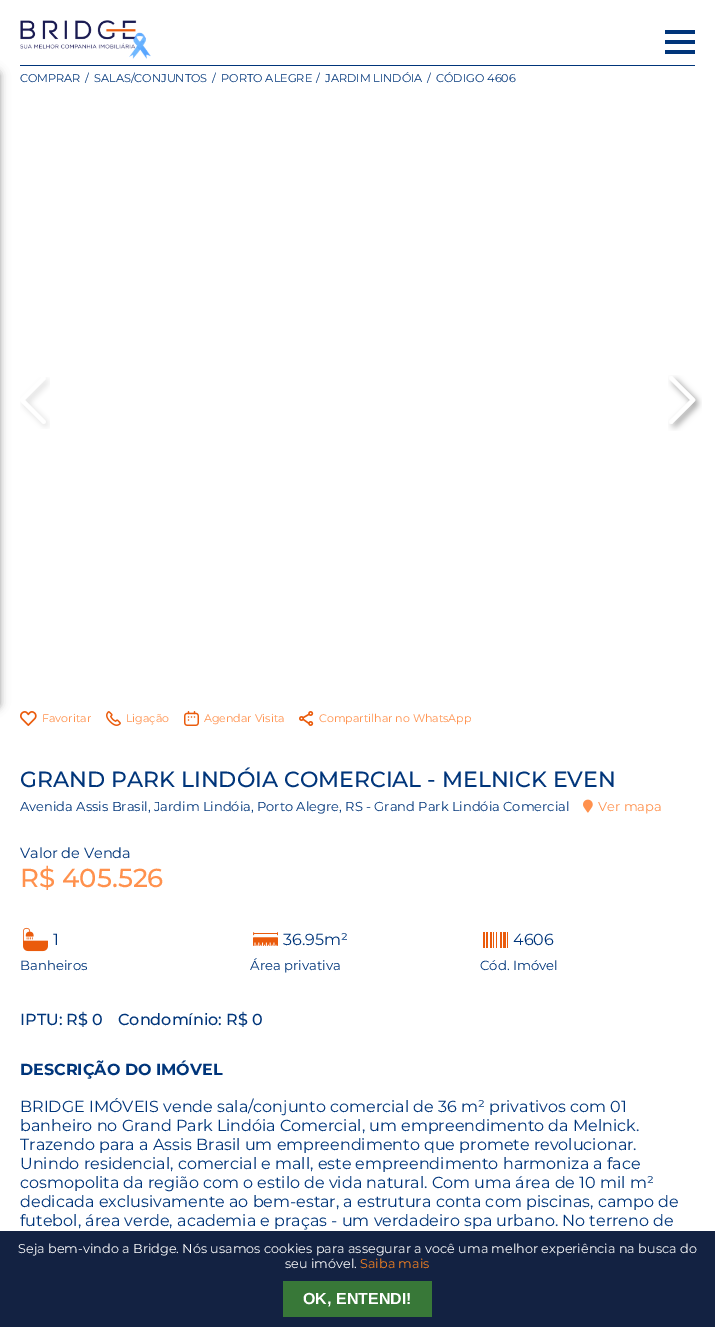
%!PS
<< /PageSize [715 1327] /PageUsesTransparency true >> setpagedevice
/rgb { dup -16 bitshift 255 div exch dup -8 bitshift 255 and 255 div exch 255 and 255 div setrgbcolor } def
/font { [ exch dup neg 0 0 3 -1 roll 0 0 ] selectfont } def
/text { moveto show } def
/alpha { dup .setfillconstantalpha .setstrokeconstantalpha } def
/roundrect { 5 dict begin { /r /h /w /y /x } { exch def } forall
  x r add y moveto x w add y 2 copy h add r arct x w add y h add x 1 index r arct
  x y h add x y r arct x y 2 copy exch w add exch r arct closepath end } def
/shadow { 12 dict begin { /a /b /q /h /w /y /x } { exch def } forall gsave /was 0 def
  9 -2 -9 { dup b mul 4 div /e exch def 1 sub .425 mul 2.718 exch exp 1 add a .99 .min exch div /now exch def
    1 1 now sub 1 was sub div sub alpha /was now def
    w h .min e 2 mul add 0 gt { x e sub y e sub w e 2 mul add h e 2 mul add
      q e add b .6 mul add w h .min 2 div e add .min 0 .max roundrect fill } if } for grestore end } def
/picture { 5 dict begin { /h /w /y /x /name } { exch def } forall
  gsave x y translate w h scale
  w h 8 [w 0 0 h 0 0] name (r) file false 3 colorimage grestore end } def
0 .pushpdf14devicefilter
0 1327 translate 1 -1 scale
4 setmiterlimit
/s1 { /Montserrat-Regular 11.25 font 16#00357A rgb } def
/s2 { /Montserrat-Regular 11 font 16#FF914D rgb } def
/s3 { /Montserrat-Medium 22 font 16#00357A rgb } def
/s4 { /Montserrat-Regular 13 font 16#00357A rgb } def
/s5 { /Montserrat-Regular 13 font 16#FF914D rgb } def
/s6 { /Montserrat-Regular 14.5 font 16#00357A rgb } def
/s7 { /Montserrat-Medium 26 font 16#FF914D rgb } def
/s8 { /Montserrat-Regular 16 font 16#00357A rgb } def
/s9 { /Montserrat-Regular 13.25 font 16#00357A rgb } def
/s10 { /Montserrat-Medium 16 font 16#00357A rgb } def
/s11 { /Montserrat-Bold 16 font 16#00357A rgb } def
/s12 { /Montserrat-Regular 12.8 font 16#FFFFFF rgb } def
/s13 { /Montserrat-Regular 12.8 font 16#F58220 rgb } def
/s14 { /LiberationSans-Bold 16 font 16#FFFFFF rgb } def
16#FFFFFF rgb
0 0 715 1327 rectfill
(pic1.raw) 20 20 131 39 picture
16#00357A rgb
665 30 30 4 rectfill
665 40 30 4 rectfill
665 50 30 4 rectfill
16#000000 rgb
-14 71 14 638 5 3 0.23 shadow
-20 70 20 638 5 5 0.19 shadow
16#00357A rgb
20 65 675 1 rectfill
s1
(COMPRAR) 20 82 text
(/) 85 82 text
(SALAS/CONJUNTOS) 94 82 text
(/) 212 82 text
(PORTO ALEGRE) 221 82 text
(/) 316 82 text
(JARDIM LINDÓIA) 325 82 text
(/) 427 82 text
(CÓDIGO 4606) 436 82 text
(pic2.raw) 20 377 30 52 picture
(pic3.raw) 668 375 34 56 picture
(pic4.raw) 20 711 17 15 picture
s2
(Favoritar) 42 722 text
(pic5.raw) 106 711 15 15 picture
(Ligação) 126 722 text
(pic6.raw) 184 711 15 15 picture
(Agendar Visita) 204 722 text
(pic7.raw) 299 711 15 15 picture
(Compartilhar no WhatsApp) 319 722 text
s3
(GRAND PARK LINDÓIA COMERCIAL - MELNICK EVEN) 20 787 text
s4
(Avenida Assis Brasil, Jardim Lindóia, Porto Alegre, RS - Grand Park Lindóia Comercial) 20 811 text
(pic8.raw) 583 799 10 14 picture
s5
(Ver mapa) 598 811 text
s6
(Valor de Venda) 20 858 text
s7
(R$ 405.526) 20 887 text
(pic9.raw) 23 927 25 25 picture
s8
(1) 53 945 text
s9
(Banheiros) 20 970 text
(pic10.raw) 253 932 25 14 picture
s8
(36.95m²) 283 945 text
s9
(Área privativa) 250 970 text
(pic11.raw) 483 932 25 16 picture
s8
(4606) 513 945 text
s9
(Cód. Imóvel) 480 970 text
s10
(IPTU: R$ 0) 20 1025 text
(Condomínio: R$ 0) 118 1025 text
s11
(DESCRIÇÃO DO IMÓVEL) 20 1075 text
s8
(BRIDGE IMÓVEIS vende sala/conjunto comercial de 36 m² privativos com 01) 20 1112 text
(banheiro no Grand Park Lindóia Comercial, um empreendimento da Melnick.) 20 1131 text
(Trazendo para a Assis Brasil um empreendimento que promete revolucionar.) 20 1150 text
(Unindo residencial, comercial e mall, este empreendimento harmoniza a face) 20 1169 text
(cosmopolita da região com o estilo de vida natural. Com uma área de 10 mil m²) 20 1188 text
(dedicada exclusivamente ao bem-estar, a estrutura conta com piscinas, campo de) 20 1207 text
(futebol, área verde, academia e praças - um verdadeiro spa urbano. No terreno de) 20 1226 text
16#132242 rgb
0 1231 715 96 rectfill
s12
(Seja bem-vindo a Bridge. Nós usamos cookies para assegurar a você uma melhor experiência na busca do) 18 1253 text
(seu imóvel.) 285 1268 text
s13
(Saiba mais) 360 1268 text
16#387838 rgb
283 1281 149 36 rectfill
s14
(OK, ENTENDI!) 303 1304 text
.poppdf14devicefilter showpage
